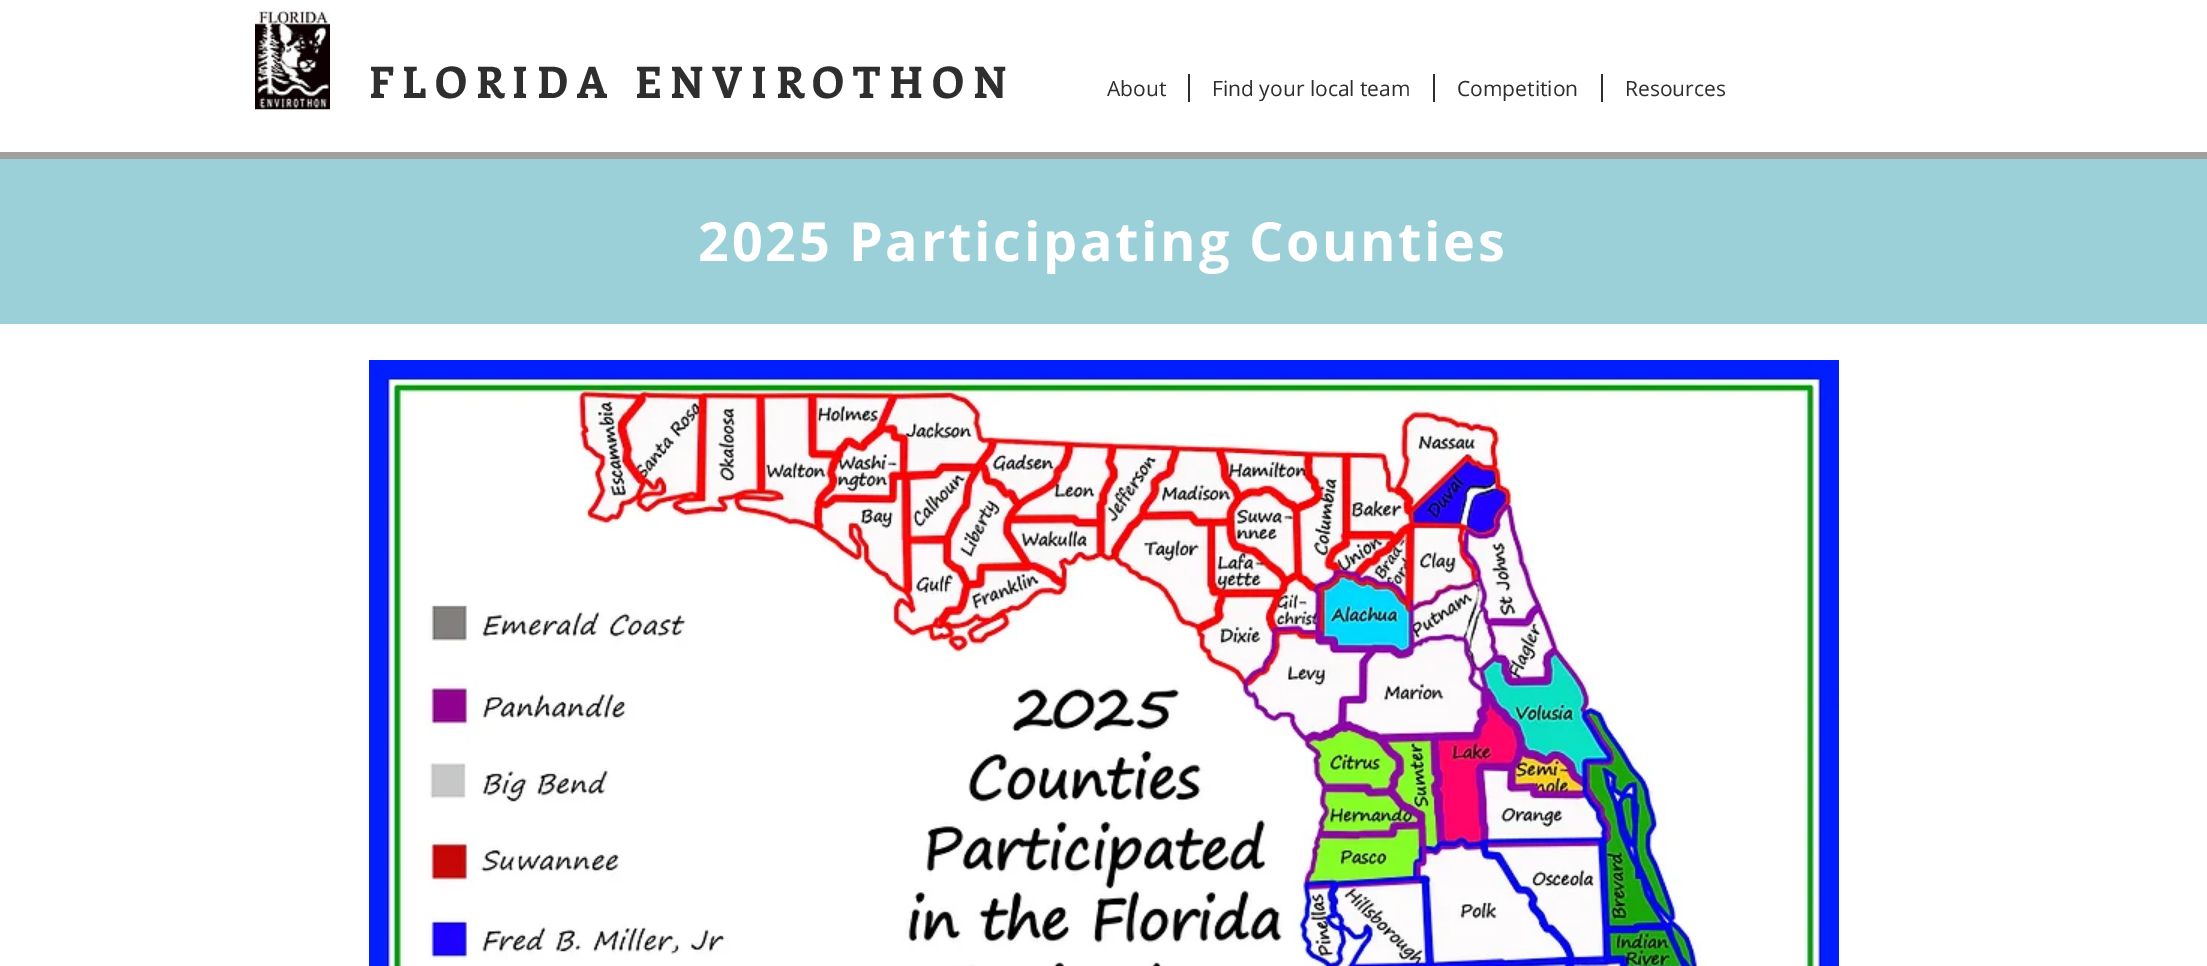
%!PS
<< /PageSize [2207 966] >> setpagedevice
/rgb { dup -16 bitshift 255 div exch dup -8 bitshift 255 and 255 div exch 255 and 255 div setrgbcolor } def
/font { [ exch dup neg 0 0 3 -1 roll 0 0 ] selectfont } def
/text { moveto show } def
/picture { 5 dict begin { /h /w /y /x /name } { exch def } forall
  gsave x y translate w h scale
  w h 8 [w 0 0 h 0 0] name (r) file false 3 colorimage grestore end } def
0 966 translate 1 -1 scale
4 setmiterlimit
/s1 { /OpenSans-Regular 21 font 16#2F2E2E rgb } def
16#FFFFFF rgb
0 0 2207 966 rectfill
(pic1.raw) 255 10 75 100 picture
/Enriqueta-Bold 43.5 font
16#2F2E2E rgb
369 98 moveto 8.75 0 (FLORIDA ENVIROTHON) ashow
s1
(About) 1107 96 text
1188 74 2 28 rectfill
(Find your local team) 1212 96 text
1433 74 2 28 rectfill
(Competition) 1457 96 text
1601 74 2 28 rectfill
(Resources) 1625 96 text
16#A0A09F rgb
0 152 2207 7 rectfill
16#9CD0D9 rgb
0 159 2207 165 rectfill
/OpenSans-Bold 54 font
16#FFFFFF rgb
698 261 moveto 2.7 0 (2025 Participating Counties) ashow
(pic2.raw) 369 360 1470 606 picture
showpage
